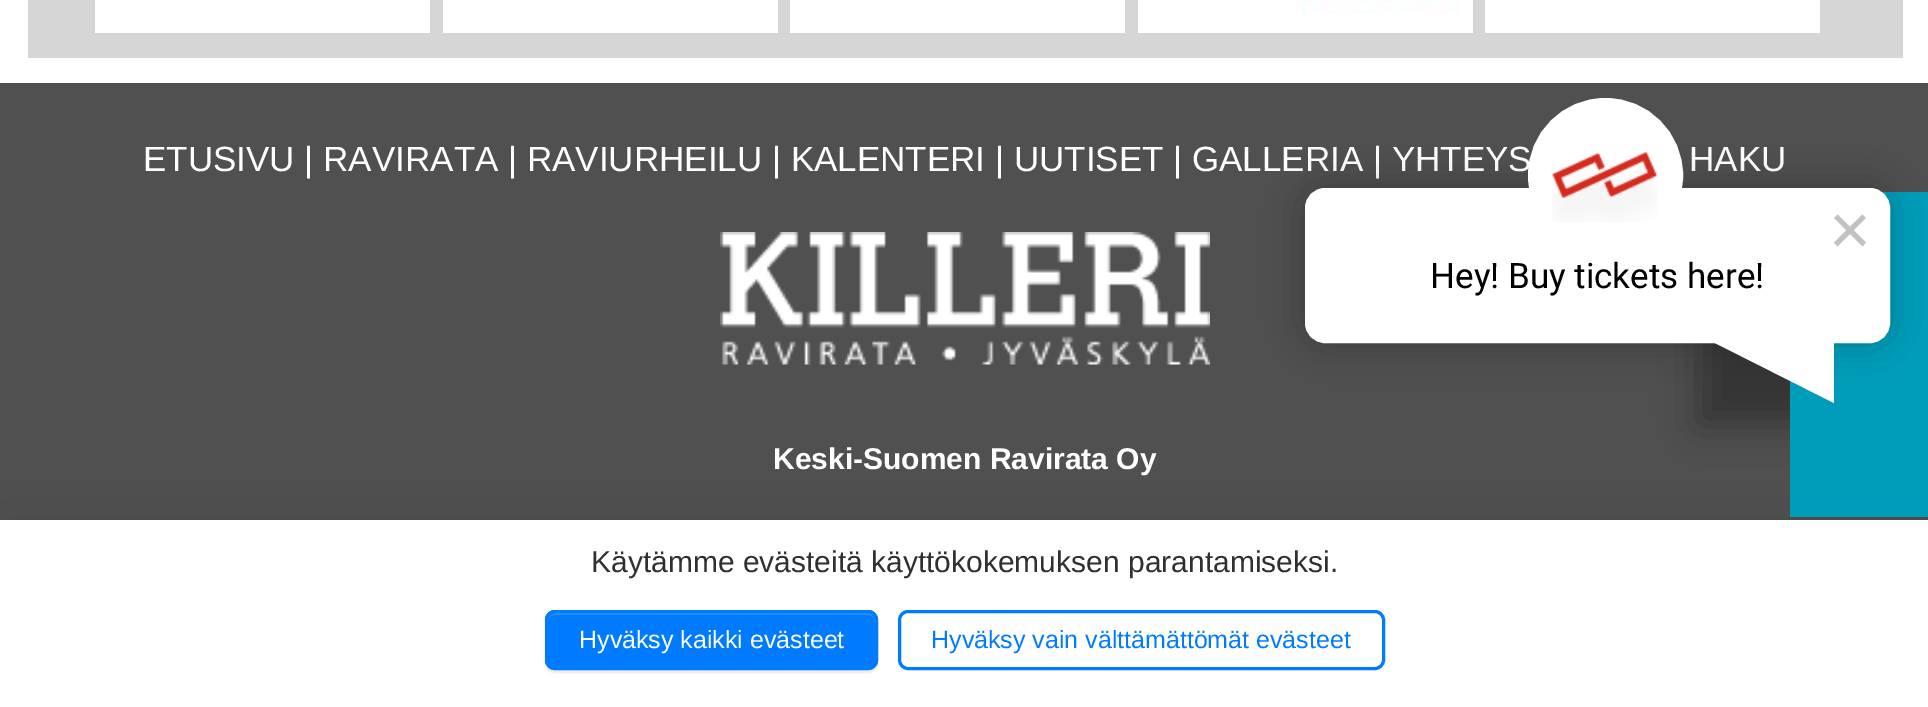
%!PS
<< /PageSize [1928 707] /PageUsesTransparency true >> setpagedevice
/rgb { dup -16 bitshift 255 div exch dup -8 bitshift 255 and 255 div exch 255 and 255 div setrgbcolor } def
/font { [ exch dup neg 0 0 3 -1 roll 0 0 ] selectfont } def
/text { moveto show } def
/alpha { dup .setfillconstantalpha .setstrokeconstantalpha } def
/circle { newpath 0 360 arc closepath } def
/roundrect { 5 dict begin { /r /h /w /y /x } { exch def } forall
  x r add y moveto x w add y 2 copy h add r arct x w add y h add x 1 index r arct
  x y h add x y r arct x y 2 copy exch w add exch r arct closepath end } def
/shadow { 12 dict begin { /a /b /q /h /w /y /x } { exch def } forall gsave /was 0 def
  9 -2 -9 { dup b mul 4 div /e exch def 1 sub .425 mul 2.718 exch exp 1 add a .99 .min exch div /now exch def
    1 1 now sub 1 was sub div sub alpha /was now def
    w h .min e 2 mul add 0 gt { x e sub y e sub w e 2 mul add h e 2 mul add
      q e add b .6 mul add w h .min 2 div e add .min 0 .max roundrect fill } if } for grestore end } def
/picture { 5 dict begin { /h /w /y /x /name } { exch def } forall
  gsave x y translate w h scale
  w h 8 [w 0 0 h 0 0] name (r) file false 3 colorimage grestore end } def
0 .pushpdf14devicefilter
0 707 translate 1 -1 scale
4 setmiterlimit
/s1 { /LiberationSans-Regular 35 font 16#FFFFFF rgb } def
/s2 { /LiberationSans-Bold 30 font 16#FFFFFF rgb } def
/s3 { /Roboto-Regular 35 font 16#000000 rgb } def
/s4 { /LiberationSans-Regular 30 font 16#303030 rgb } def
/s5 { /LiberationSans-Regular 25 font 16#FFFFFF rgb } def
/s6 { /LiberationSans-Regular 25 font 16#007BFF rgb } def
16#FFFFFF rgb
0 0 1928 707 rectfill
16#D6D6D6 rgb
28 0 1875 58 rectfill
16#FFFFFF rgb
95 0 335 33 rectfill
443 0 335 33 rectfill
790 0 335 33 rectfill
1138 0 335 33 rectfill
(pic1.raw) 1297 0 163 14 picture
1485 0 335 33 rectfill
16#505050 rgb
0 83 1928 437 rectfill
s1
(ETUSIVU | RAVIRATA | RAVIURHEILU | KALENTERI | UUTISET | GALLERIA | YHTEYS) 143 171 text
(HAKU) 1689 171 text
(pic2.raw) 720 232 490 133 picture
s2
(Keski-Suomen Ravirata Oy) 773 469 text
16#000000 rgb
1698 285 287 140 0 19 0.35 shadow
0 545 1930 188 0 37.5 0.18 shadow
16#009DBA rgb
1790 192 138 325 rectfill
16#000000 rgb
1305 188 585 155 20 19 0.25 shadow
16#FFFFFF rgb
1306.5 189.5 582 152 18.5 roundrect gsave fill grestore
3 setlinewidth
stroke
1605.5 175.5 70 circle gsave fill grestore
15 setlinewidth
stroke
(pic3.raw) 1552 152 106 70 picture
16#C2C2C2 rgb
1862.5 214.5 moveto 1866 218 lineto 1837.5 246.5 lineto 1834 242.5 lineto closepath fill
1834 218 moveto 1837.5 214.5 lineto 1866 242.5 lineto 1862.5 246.5 lineto closepath fill
s3
(Hey! Buy tickets here!) 1430 288 text
16#FFFFFF rgb
1709 340 moveto 1834 403 lineto 1834 278 lineto closepath fill
0 520 1928 187 rectfill
s4
(Käytämme evästeitä käyttökokemuksen parantamiseksi.) 591 572 text
16#000000 rgb
545 613 333 60 10 1 0.07 shadow
16#007BFF rgb
545 610 333 60 10 roundrect fill
16#268FFF rgb
555 615 moveto 868 615 lineto 872 615 875 618 875 622 curveto 875 621 lineto 875 617 871 613 867 613 curveto 556 613 lineto 552 613 548 617 548 621 curveto 548 622 lineto 548 618 551 615 555 615 curveto closepath fill
16#007BFF rgb
3 setlinewidth
546.5 611.5 330 57 8.5 roundrect stroke
s5
(Hyväksy kaikki evästeet) 579 648 text
16#007BFF rgb
899.5 611.5 484 57 8.5 roundrect stroke
(Hyväksy vain välttämättömät evästeet) 931 648 text
.poppdf14devicefilter showpage
